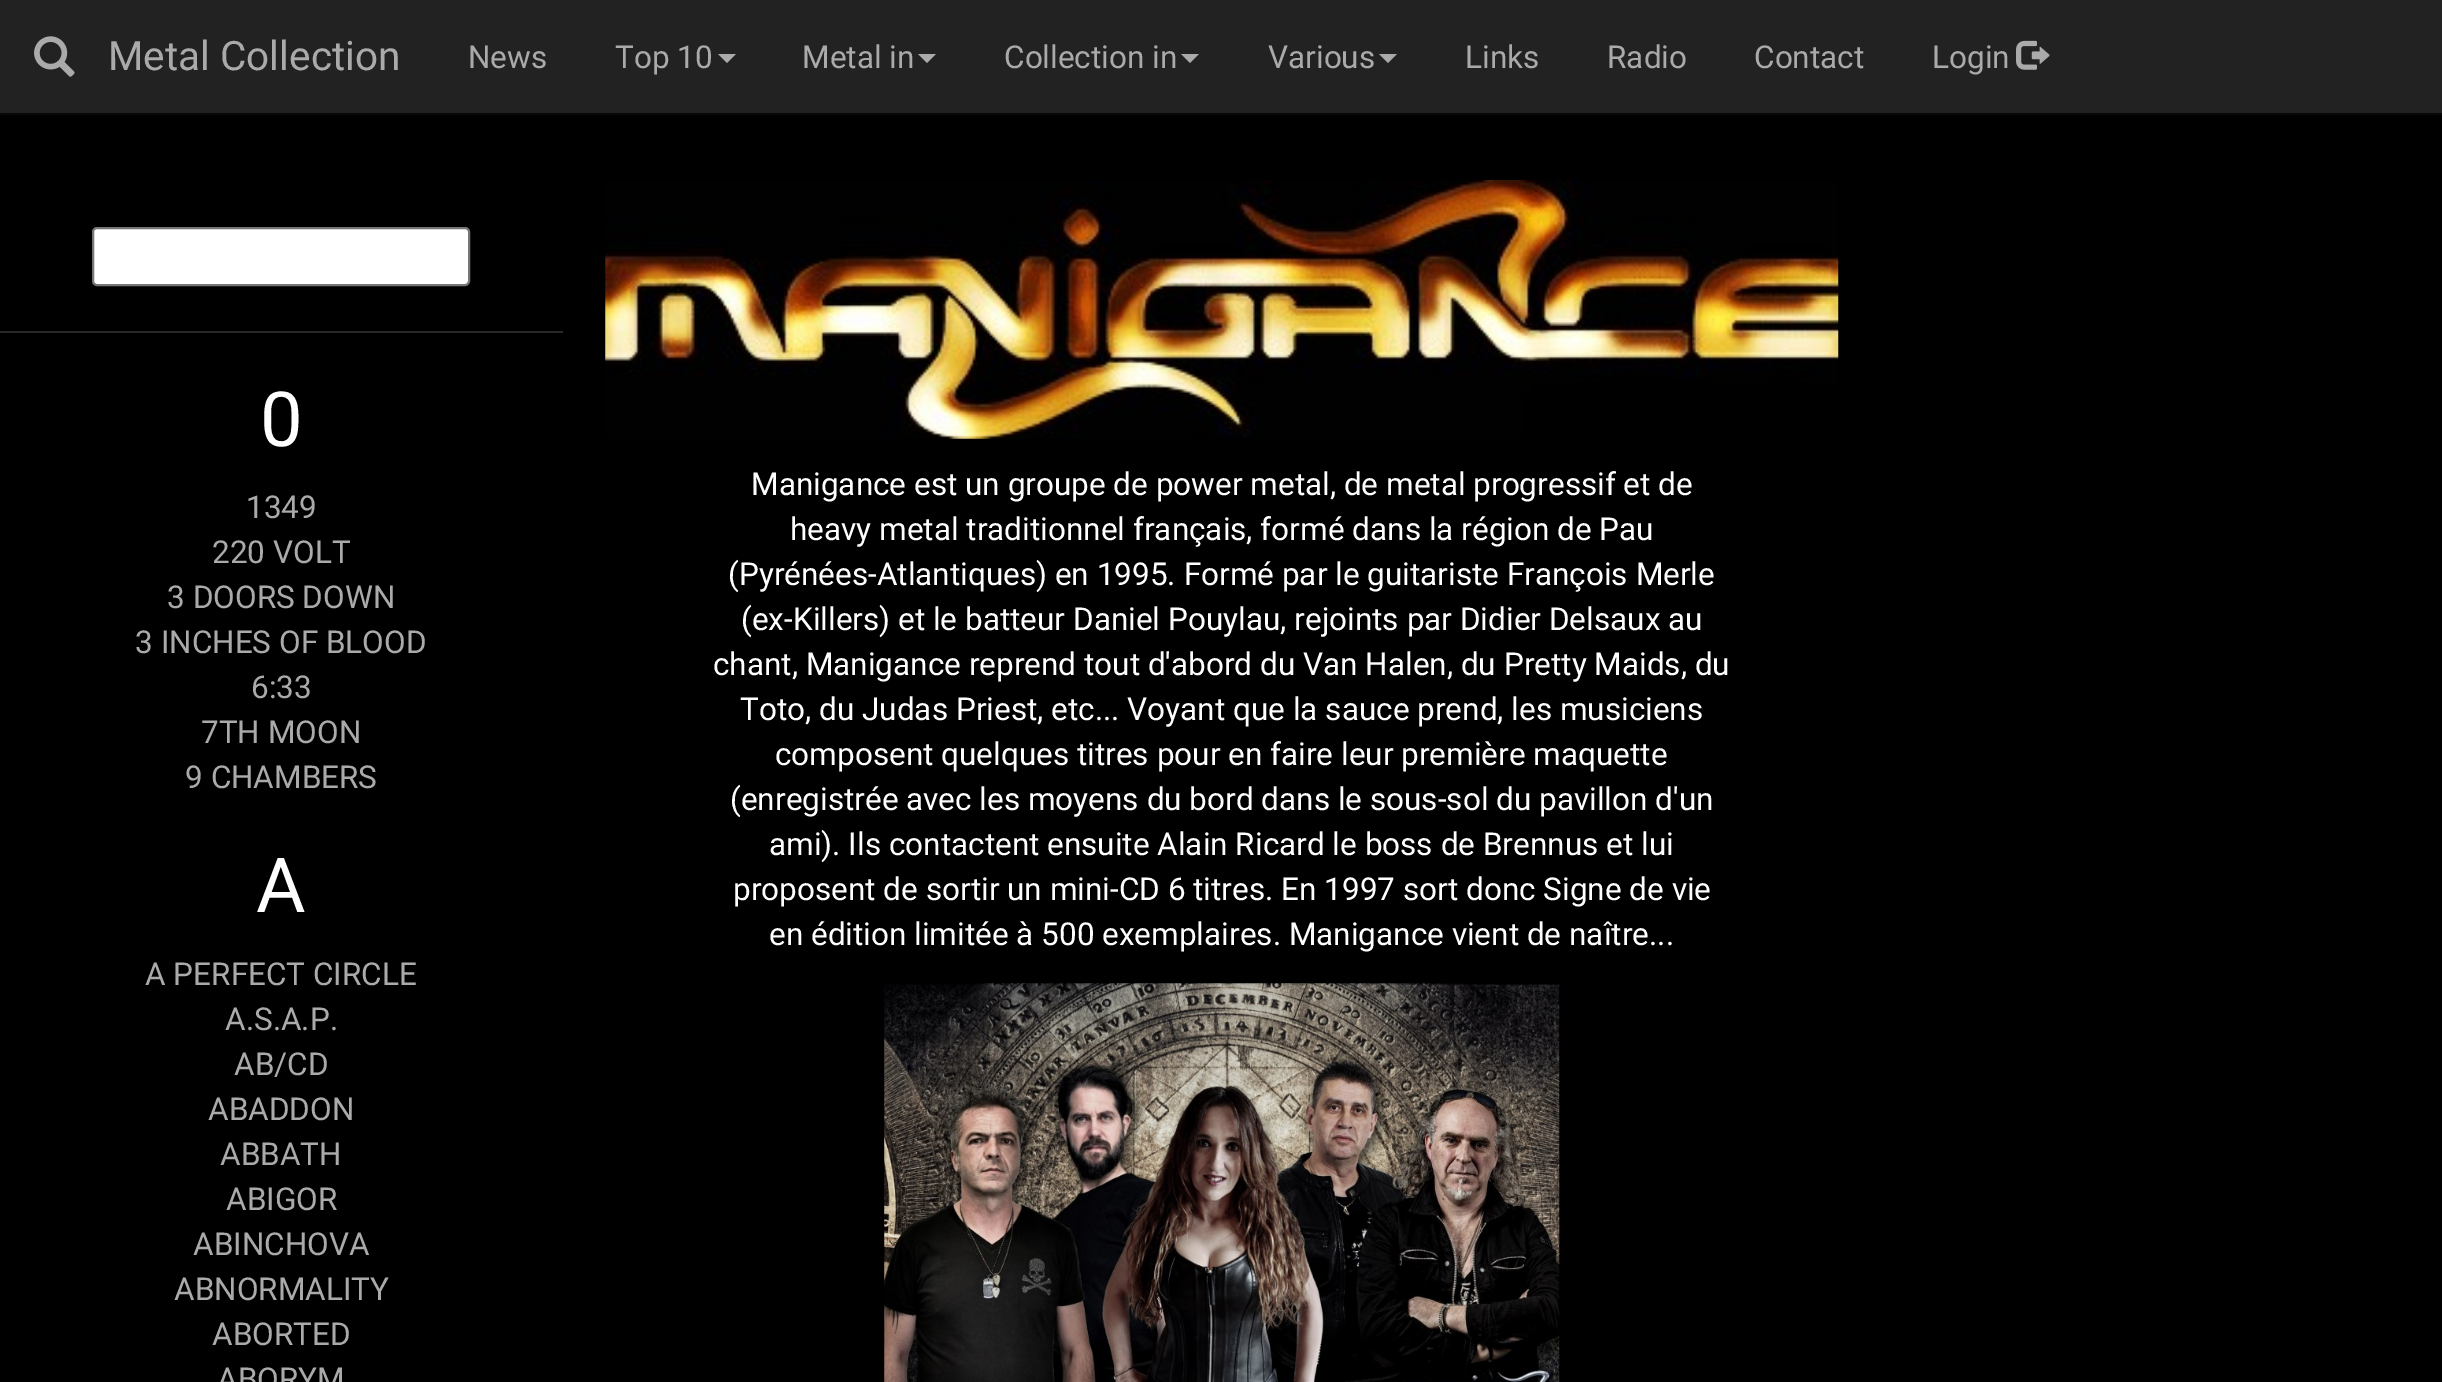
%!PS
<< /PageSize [2442 1382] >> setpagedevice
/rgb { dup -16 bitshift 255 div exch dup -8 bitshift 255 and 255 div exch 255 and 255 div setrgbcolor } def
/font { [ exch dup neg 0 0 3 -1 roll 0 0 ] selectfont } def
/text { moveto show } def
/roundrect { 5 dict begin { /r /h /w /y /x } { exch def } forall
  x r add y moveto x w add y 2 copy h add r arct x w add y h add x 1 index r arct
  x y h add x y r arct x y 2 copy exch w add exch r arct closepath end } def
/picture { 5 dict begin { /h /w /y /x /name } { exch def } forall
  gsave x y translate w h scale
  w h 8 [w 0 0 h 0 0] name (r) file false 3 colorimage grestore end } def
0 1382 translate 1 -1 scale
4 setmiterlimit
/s1 { /Roboto-Regular 40.5 font 16#AAAAAA rgb } def
/s2 { /Roboto-Regular 31.5 font 16#AAAAAA rgb } def
/s3 { /Roboto-Regular 76 font 16#FFFFFF rgb } def
/s4 { /Roboto-Regular 31.5 font 16#FFFFFF rgb } def
16#000000 rgb
0 0 2442 1382 rectfill
16#222222 rgb
0 0 2442 113 rectfill
16#080808 rgb
0 113 2442 2 rectfill
(pic1.raw) 34 36 41 41 picture
s1
(Metal Collection) 108 70 text
s2
(News) 468 68 text
(Top 10) 615 68 text
718 54 moveto 736 54 lineto 727 63 lineto closepath fill
(Metal in) 802 68 text
918 54 moveto 936 54 lineto 927 63 lineto closepath fill
(Collection in) 1004 68 text
1181 54 moveto 1199 54 lineto 1190 63 lineto closepath fill
(Various) 1268 68 text
1379 54 moveto 1397 54 lineto 1388 63 lineto closepath fill
(Links) 1465 68 text
(Radio) 1607 68 text
(Contact) 1754 68 text
(Login) 1932 68 text
(pic2.raw) 2016 40 34 30 picture
16#FFFFFF rgb
93 228 376 57 4 roundrect gsave fill grestore
16#767676 rgb
2 setlinewidth
stroke
16#282828 rgb
0 331 563 2 rectfill
s3
(0) 260 446 text
s2
(1349) 246 518 text
(220 VOLT) 212 563 text
(3 DOORS DOWN) 167 608 text
(3 INCHES OF BLOOD) 135 653 text
(6:33) 251 698 text
(7TH MOON) 201 743 text
(9 CHAMBERS) 185 788 text
s3
(A) 256 912 text
s2
(A PERFECT CIRCLE) 145 985 text
(A.S.A.P.) 225 1030 text
(AB/CD) 234 1075 text
(ABADDON) 208 1120 text
(ABBATH) 220 1165 text
(ABIGOR) 226 1210 text
(ABINCHOVA) 193 1255 text
(ABNORMALITY) 174 1300 text
(ABORTED) 212 1345 text
(ABORYM) 217 1390 text
(pic3.raw) 605 180 1234 259 picture
s4
(Manigance est un groupe de power metal, de metal progressif et de) 751 495 text
(heavy metal traditionnel français, formé dans la région de Pau) 790 540 text
(\(Pyrénées-Atlantiques\) en 1995. Formé par le guitariste François Merle) 728 585 text
(\(ex-Killers\) et le batteur Daniel Pouylau, rejoints par Didier Delsaux au) 741 630 text
(chant, Manigance reprend tout d'abord du Van Halen, du Pretty Maids, du) 713 675 text
(Toto, du Judas Priest, etc... Voyant que la sauce prend, les musiciens) 740 720 text
(composent quelques titres pour en faire leur première maquette) 775 765 text
(\(enregistrée avec les moyens du bord dans le sous-sol du pavillon d'un) 730 810 text
(ami\). Ils contactent ensuite Alain Ricard le boss de Brennus et lui) 769 855 text
(proposent de sortir un mini-CD 6 titres. En 1997 sort donc Signe de vie) 733 900 text
(en édition limitée à 500 exemplaires. Manigance vient de naître...) 769 945 text
(pic4.raw) 884 983 676 399 picture
showpage
